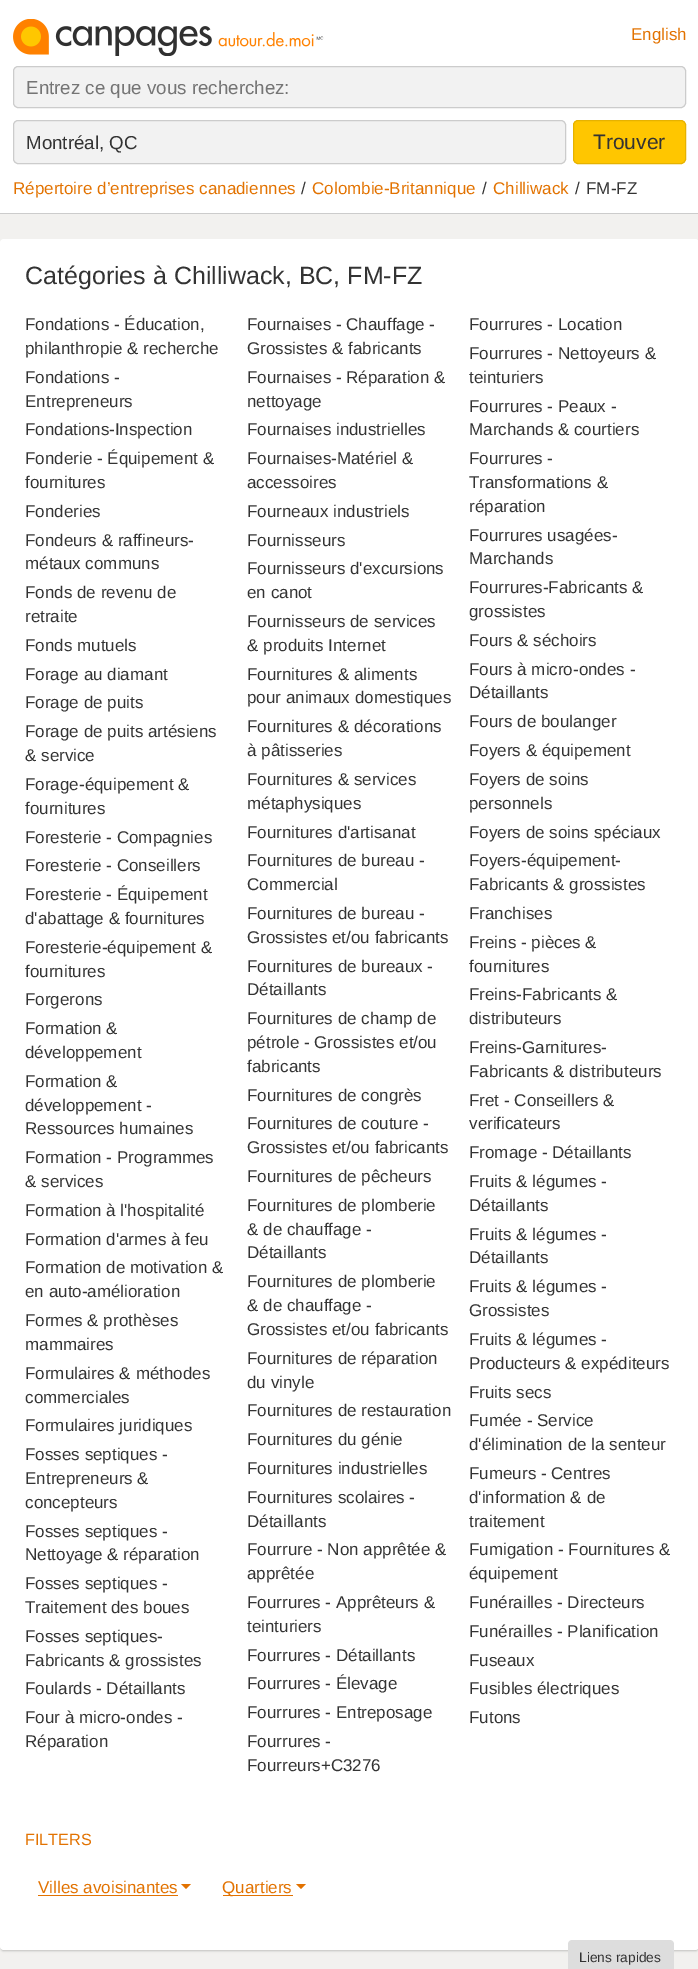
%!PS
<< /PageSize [698 1969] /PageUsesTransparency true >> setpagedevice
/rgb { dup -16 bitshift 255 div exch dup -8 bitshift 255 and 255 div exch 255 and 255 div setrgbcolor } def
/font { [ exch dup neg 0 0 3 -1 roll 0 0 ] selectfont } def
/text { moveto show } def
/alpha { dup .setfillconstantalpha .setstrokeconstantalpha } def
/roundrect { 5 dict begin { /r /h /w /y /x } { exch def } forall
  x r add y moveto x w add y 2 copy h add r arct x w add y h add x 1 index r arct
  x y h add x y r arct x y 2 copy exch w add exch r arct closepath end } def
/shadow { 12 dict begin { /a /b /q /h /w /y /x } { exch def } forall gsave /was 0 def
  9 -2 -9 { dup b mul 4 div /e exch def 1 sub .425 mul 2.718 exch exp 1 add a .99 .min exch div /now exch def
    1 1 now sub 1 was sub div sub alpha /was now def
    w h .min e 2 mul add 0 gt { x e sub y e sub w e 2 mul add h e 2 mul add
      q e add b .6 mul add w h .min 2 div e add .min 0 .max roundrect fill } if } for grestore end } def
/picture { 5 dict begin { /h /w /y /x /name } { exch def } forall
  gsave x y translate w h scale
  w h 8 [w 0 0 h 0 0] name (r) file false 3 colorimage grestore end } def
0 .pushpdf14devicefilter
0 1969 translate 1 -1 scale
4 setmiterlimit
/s1 { /LiberationSans-Regular 17 font 16#E27200 rgb } def
/s2 { /LiberationSans-Regular 18.75 font 16#757575 rgb } def
/s3 { /LiberationSans-Regular 18.75 font 16#333333 rgb } def
/s4 { /LiberationSans-Regular 21 font 16#333333 rgb } def
/s5 { /LiberationSans-Regular 17 font 16#333333 rgb } def
/s6 { /LiberationSans-Regular 25 font 16#333333 rgb } def
/s7 { /LiberationSans-Regular 16.25 font 16#E27200 rgb } def
/s8 { /LiberationSans-Regular 13.75 font 16#333333 rgb } def
16#F2F1EF rgb
0 0 698 1969 rectfill
16#FFFFFF rgb
0 0 698 213 rectfill
16#CCCCCC rgb
0 213 698 1 rectfill
(pic1.raw) 13 19 311 37 picture
s1
(English) 631 40 text
16#F2F2F2 rgb
13.5 66.5 672 41 4.5 roundrect gsave fill grestore
16#CCCCCC rgb
stroke
s2
(Entrez ce que vous recherchez:) 26 94 text
16#F2F2F2 rgb
13.5 120.5 552 43 4.5 roundrect gsave fill grestore
16#CCCCCC rgb
stroke
s3
(Montréal, QC) 26 149 text
16#FFC600 rgb
573.5 120.5 112 43 4.5 roundrect gsave fill grestore
16#E6B200 rgb
stroke
s4
(Trouver) 593 149 text
s1
(Répertoire d’entreprises canadiennes) 13 194 text
s5
(/) 301 194 text
s1
(Colombie-Britannique) 312 194 text
s5
(/) 482 194 text
s1
(Chilliwack) 493 194 text
s5
(/) 575 194 text
(FM-FZ) 586 194 text
16#000000 rgb
1 243 697 1708 2.5 1 0.2 shadow
16#FFFFFF rgb
0 239 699 1711 4 roundrect fill
s6
(Catégories à Chilliwack, BC, FM-FZ) 25 284 text
s5
(Fondations - Éducation,) 25 330 text
(philanthropie & recherche) 25 354 text
(Fournaises - Chauffage -) 247 330 text
(Grossistes & fabricants) 247 354 text
(Fourrures - Location) 469 330 text
(Fourrures - Nettoyeurs &) 469 359 text
(teinturiers) 469 383 text
(Fondations -) 25 383 text
(Entrepreneurs) 25 407 text
(Fournaises - Réparation &) 247 383 text
(nettoyage) 247 407 text
(Fondations-Inspection) 25 435 text
(Fournaises industrielles) 247 435 text
(Fourrures - Peaux -) 469 412 text
(Marchands & courtiers) 469 435 text
(Fonderie - Équipement &) 25 464 text
(fournitures) 25 488 text
(Fournaises-Matériel &) 247 464 text
(accessoires) 247 488 text
(Fourrures -) 469 464 text
(Transformations &) 469 488 text
(réparation) 469 512 text
(Fonderies) 25 517 text
(Fourneaux industriels) 247 517 text
(Fondeurs & raffineurs-) 25 546 text
(métaux communs) 25 569 text
(Fournisseurs) 247 546 text
(Fourrures usagées-) 469 541 text
(Marchands) 469 564 text
(Fonds de revenu de) 25 598 text
(retraite) 25 622 text
(Fournisseurs d'excursions) 247 574 text
(en canot) 247 598 text
(Fourrures-Fabricants &) 469 593 text
(grossistes) 469 617 text
(Fonds mutuels) 25 651 text
(Fournisseurs de services) 247 627 text
(& produits Internet) 247 651 text
(Fours & séchoirs) 469 646 text
(Forage au diamant) 25 680 text
(Fournitures & aliments) 247 680 text
(pour animaux domestiques) 247 703 text
(Fours à micro-ondes -) 469 675 text
(Détaillants) 469 698 text
(Forage de puits) 25 708 text
(Forage de puits artésiens) 25 737 text
(& service) 25 761 text
(Fournitures & décorations) 247 732 text
(à pâtisseries) 247 756 text
(Fours de boulanger) 469 727 text
(Foyers & équipement) 469 756 text
(Forage-équipement &) 25 790 text
(fournitures) 25 814 text
(Fournitures & services) 247 785 text
(métaphysiques) 247 809 text
(Foyers de soins) 469 785 text
(personnels) 469 809 text
(Foresterie - Compagnies) 25 843 text
(Fournitures d'artisanat) 247 838 text
(Foyers de soins spéciaux) 469 838 text
(Foresterie - Conseillers) 25 871 text
(Fournitures de bureau -) 247 866 text
(Commercial) 247 890 text
(Foyers-équipement-) 469 866 text
(Fabricants & grossistes) 469 890 text
(Foresterie - Équipement) 25 900 text
(d'abattage & fournitures) 25 924 text
(Fournitures de bureau -) 247 919 text
(Grossistes et/ou fabricants) 247 943 text
(Franchises) 469 919 text
(Foresterie-équipement &) 25 953 text
(fournitures) 25 977 text
(Fournitures de bureaux -) 247 972 text
(Détaillants) 247 995 text
(Freins - pièces &) 469 948 text
(fournitures) 469 972 text
(Forgerons) 25 1005 text
(Freins-Fabricants &) 469 1000 text
(distributeurs) 469 1024 text
(Formation &) 25 1034 text
(développement) 25 1058 text
(Fournitures de champ de) 247 1024 text
(pétrole - Grossistes et/ou) 247 1048 text
(fabricants) 247 1072 text
(Freins-Garnitures-) 469 1053 text
(Fabricants & distributeurs) 469 1077 text
(Formation &) 25 1087 text
(développement -) 25 1111 text
(Ressources humaines) 25 1134 text
(Fournitures de congrès) 247 1101 text
(Fret - Conseillers &) 469 1106 text
(verificateurs) 469 1129 text
(Formation - Programmes) 25 1163 text
(& services) 25 1187 text
(Fournitures de couture -) 247 1129 text
(Grossistes et/ou fabricants) 247 1153 text
(Fromage - Détaillants) 469 1158 text
(Fournitures de pêcheurs) 247 1182 text
(Fruits & légumes -) 469 1187 text
(Détaillants) 469 1211 text
(Formation à l'hospitalité) 25 1216 text
(Fournitures de plomberie) 247 1211 text
(& de chauffage -) 247 1235 text
(Détaillants) 247 1258 text
(Formation d'armes à feu) 25 1245 text
(Fruits & légumes -) 469 1240 text
(Détaillants) 469 1263 text
(Formation de motivation &) 25 1273 text
(en auto-amélioration) 25 1297 text
(Fournitures de plomberie) 247 1287 text
(& de chauffage -) 247 1311 text
(Grossistes et/ou fabricants) 247 1335 text
(Fruits & légumes -) 469 1292 text
(Grossistes) 469 1316 text
(Formes & prothèses) 25 1326 text
(mammaires) 25 1350 text
(Fournitures de réparation) 247 1364 text
(du vinyle) 247 1388 text
(Fruits & légumes -) 469 1345 text
(Producteurs & expéditeurs) 469 1369 text
(Formulaires & méthodes) 25 1379 text
(commerciales) 25 1403 text
(Fruits secs) 469 1398 text
(Fournitures de restauration) 247 1416 text
(Formulaires juridiques) 25 1431 text
(Fumée - Service) 469 1426 text
(d'élimination de la senteur) 469 1450 text
(Fournitures du génie) 247 1445 text
(Fosses septiques -) 25 1460 text
(Entrepreneurs &) 25 1484 text
(concepteurs) 25 1508 text
(Fournitures industrielles) 247 1474 text
(Fumeurs - Centres) 469 1479 text
(d'information & de) 469 1503 text
(traitement) 469 1527 text
(Fournitures scolaires -) 247 1503 text
(Détaillants) 247 1527 text
(Fosses septiques -) 25 1537 text
(Nettoyage & réparation) 25 1560 text
(Fourrure - Non apprêtée &) 247 1555 text
(apprêtée) 247 1579 text
(Fumigation - Fournitures &) 469 1555 text
(équipement) 469 1579 text
(Fosses septiques -) 25 1589 text
(Traitement des boues) 25 1613 text
(Fourrures - Apprêteurs &) 247 1608 text
(teinturiers) 247 1632 text
(Funérailles - Directeurs) 469 1608 text
(Fosses septiques-) 25 1642 text
(Fabricants & grossistes) 25 1666 text
(Fourrures - Détaillants) 247 1661 text
(Funérailles - Planification) 469 1637 text
(Fuseaux) 469 1666 text
(Foulards - Détaillants) 25 1694 text
(Fourrures - Élevage) 247 1689 text
(Fusibles électriques) 469 1694 text
(Four à micro-ondes -) 25 1723 text
(Réparation) 25 1747 text
(Fourrures - Entreposage) 247 1718 text
(Futons) 469 1723 text
(Fourrures -) 247 1747 text
(Fourreurs+C3276) 247 1771 text
s7
(FILTERS) 25 1845 text
s1
(Villes avoisinantes) 38 1893 text
38 1895 140 1 rectfill
181 1884 moveto 191 1884 lineto 186 1889 lineto closepath fill
223 1895 70 1 rectfill
(Quartiers) 222 1893 text
296 1884 moveto 306 1884 lineto 301 1889 lineto closepath fill
16#DDDDDD rgb
572 1940 moveto 670 1940 lineto 672 1940 674 1942 674 1944 curveto 674 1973 lineto 568 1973 lineto 568 1944 lineto 568 1942 570 1940 572 1940 curveto closepath fill
s8
(Liens rapides) 579 1962 text
.poppdf14devicefilter showpage
